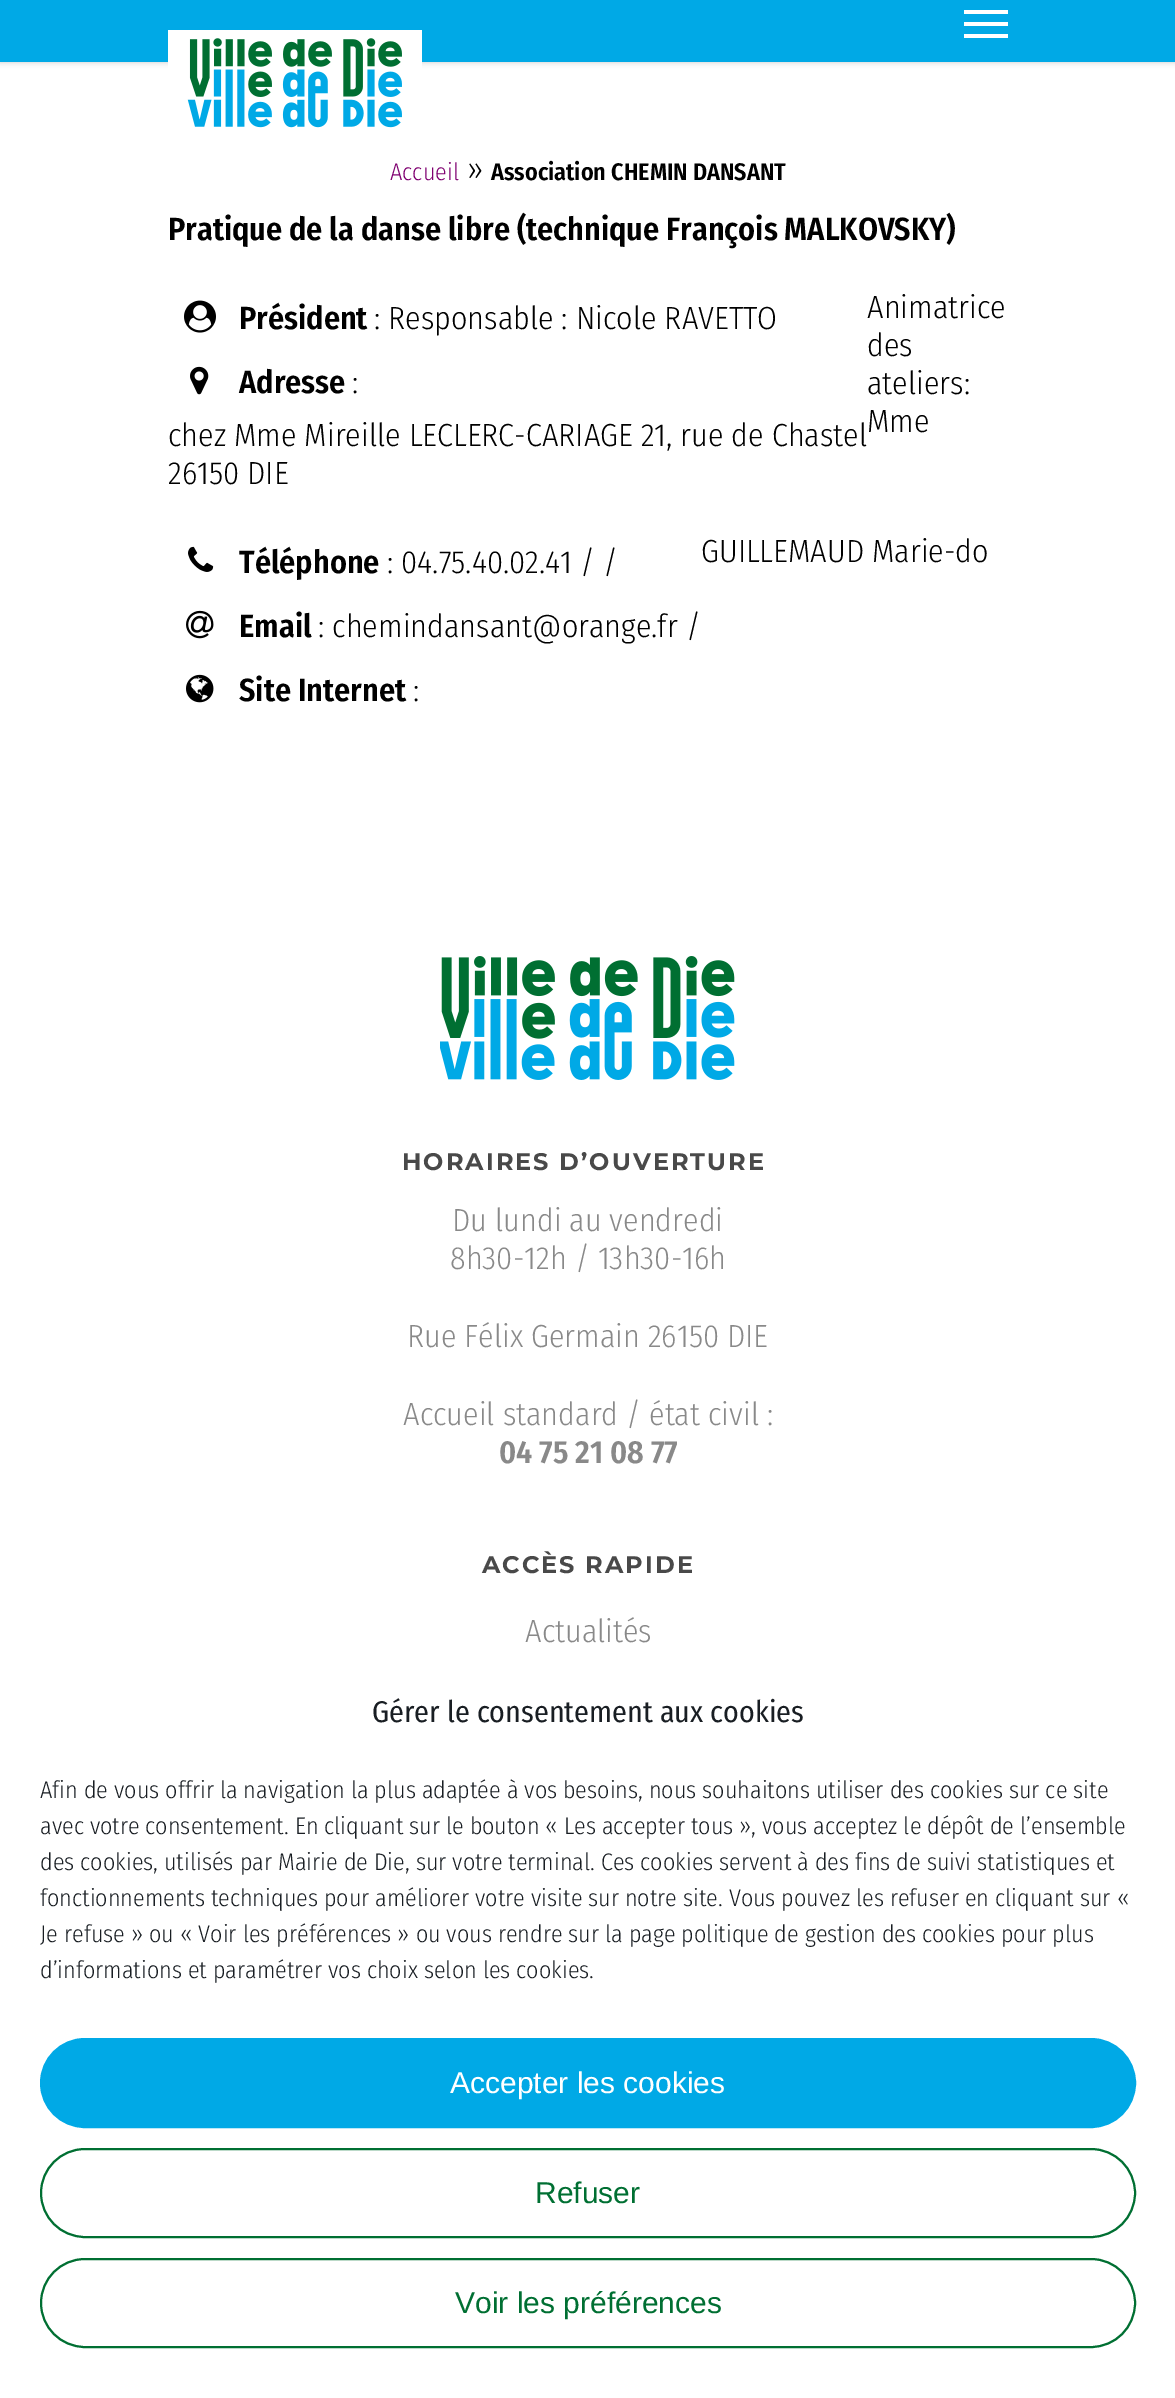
%!PS
<< /PageSize [1175 2398] /PageUsesTransparency true >> setpagedevice
/rgb { dup -16 bitshift 255 div exch dup -8 bitshift 255 and 255 div exch 255 and 255 div setrgbcolor } def
/font { [ exch dup neg 0 0 3 -1 roll 0 0 ] selectfont } def
/text { moveto show } def
/alpha { dup .setfillconstantalpha .setstrokeconstantalpha } def
/roundrect { 5 dict begin { /r /h /w /y /x } { exch def } forall
  x r add y moveto x w add y 2 copy h add r arct x w add y h add x 1 index r arct
  x y h add x y r arct x y 2 copy exch w add exch r arct closepath end } def
/shadow { 12 dict begin { /a /b /q /h /w /y /x } { exch def } forall gsave /was 0 def
  9 -2 -9 { dup b mul 4 div /e exch def 1 sub .425 mul 2.718 exch exp 1 add a .99 .min exch div /now exch def
    1 1 now sub 1 was sub div sub alpha /was now def
    w h .min e 2 mul add 0 gt { x e sub y e sub w e 2 mul add h e 2 mul add
      q e add b .6 mul add w h .min 2 div e add .min 0 .max roundrect fill } if } for grestore end } def
/picture { 5 dict begin { /h /w /y /x /name } { exch def } forall
  gsave x y translate w h scale
  w h 8 [w 0 0 h 0 0] name (r) file false 3 colorimage grestore end } def
0 .pushpdf14devicefilter
0 2398 translate 1 -1 scale
4 setmiterlimit
/s1 { /FiraSansCondensed-Light 24 font 16#7F0070 rgb } def
/s2 { /FiraSansCondensed-Light 32 font 16#000000 rgb } def
/s3 { /FiraSansCondensed-SemiBold 24 font 16#000000 rgb } def
/s4 { /FiraSansCondensed-SemiBold 32 font 16#000000 rgb } def
/s5 { /FiraSansCondensed-Light 32 font 16#898989 rgb } def
/s6 { /FiraSansCondensed-SemiBold 32 font 16#898989 rgb } def
/s7 { /FiraSansCondensed-Regular 30 font 16#191E23 rgb } def
/s8 { /FiraSansCondensed-Light 24 font 16#191E23 rgb } def
/s9 { /LiberationSans-Regular 30 font 16#FFFFFF rgb } def
/s10 { /LiberationSans-Regular 30 font 16#006F32 rgb } def
16#FFFFFF rgb
0 0 1175 2398 rectfill
16#000000 rgb
0 0 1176 62 0 3 0.22 shadow
16#00A9E6 rgb
0 0 1175 62 rectfill
16#FFFFFF rgb
964 10 44 4 rectfill
964 34 44 4 rectfill
964 22 44 4 rectfill
(pic1.raw) 168 30 254 98 picture
s1
(Accueil) 390 180 text
s2
(») 467 180 text
s3
(Association CHEMIN DANSANT) 491 180 text
s4
(Pratique de la danse libre \(technique François MALKOVSKY\)) 168 240 text
s2
(Animatrice) 867 318 text
(des) 867 356 text
(ateliers:) 867 394 text
(Mme) 867 432 text
(GUILLEMAUD Marie-do) 701 562 text
(pic2.raw) 184 300 32 33 picture
s4
(Président) 239 329 text
s2
(: Responsable : Nicole RAVETTO) 374 329 text
(pic3.raw) 190 366 19 29 picture
s4
(Adresse) 239 393 text
s2
(:) 352 393 text
(chez Mme Mireille LECLERC-CARIAGE 21, rue de Chastel) 168 446 text
(26150 DIE) 168 484 text
(pic4.raw) 188 546 26 26 picture
s4
(Téléphone) 239 573 text
s2
(: 04.75.40.02.41 / /) 387 573 text
(pic5.raw) 186 610 28 29 picture
s4
(Email) 239 637 text
s2
(: chemindansant@orange.fr /) 318 637 text
(pic6.raw) 186 674 28 29 picture
s4
(Site Internet) 239 701 text
s2
(:) 413 701 text
(pic7.raw) 440 956 295 124 picture
/Montserrat-Thin 24 font
16#494949 rgb
402 1170 moveto 2 0 (HORAIRES D’OUVERTURE) ashow
s5
(Du lundi au vendredi) 452 1231 text
(8h30-12h / 13h30-16h) 450 1269 text
(Rue Félix Germain 26150 DIE) 407 1347 text
(Accueil standard / état civil :) 403 1425 text
s6
(04 75 21 08 77) 499 1463 text
/Montserrat-Thin 24 font
16#494949 rgb
482 1573 moveto 2 0 (ACCÈS RAPIDE) ashow
s5
(Actualités) 525 1642 text
s7
(Gérer le consentement aux cookies) 372 1722 text
s8
(Afin de vous offrir la navigation la plus adaptée à vos besoins, nous souhaitons utiliser des cookies sur ce site) 40 1798 text
(avec votre consentement. En cliquant sur le bouton « Les accepter tous », vous acceptez le dépôt de l’ensemble) 40 1834 text
(des cookies, utilisés par Mairie de Die, sur votre terminal. Ces cookies servent à des fins de suivi statistiques et) 40 1870 text
(fonctionnements techniques pour améliorer votre visite sur notre site. Vous pouvez les refuser en cliquant sur «) 40 1906 text
(Je refuse » ou « Voir les préférences » ou vous rendre sur la page politique de gestion des cookies pour plus) 40 1942 text
(d’informations et paramétrer vos choix selon les cookies.) 40 1978 text
16#00A9E6 rgb
41 2039 1094 88 44 roundrect gsave fill grestore
2 setlinewidth
stroke
s9
(Accepter les cookies) 450 2093 text
16#006F32 rgb
41 2149 1094 88 44 roundrect stroke
(Refuser) 535 2203 text
41 2259 1094 88 44 roundrect stroke
(Voir les préférences) 455 2313 text
.poppdf14devicefilter showpage
